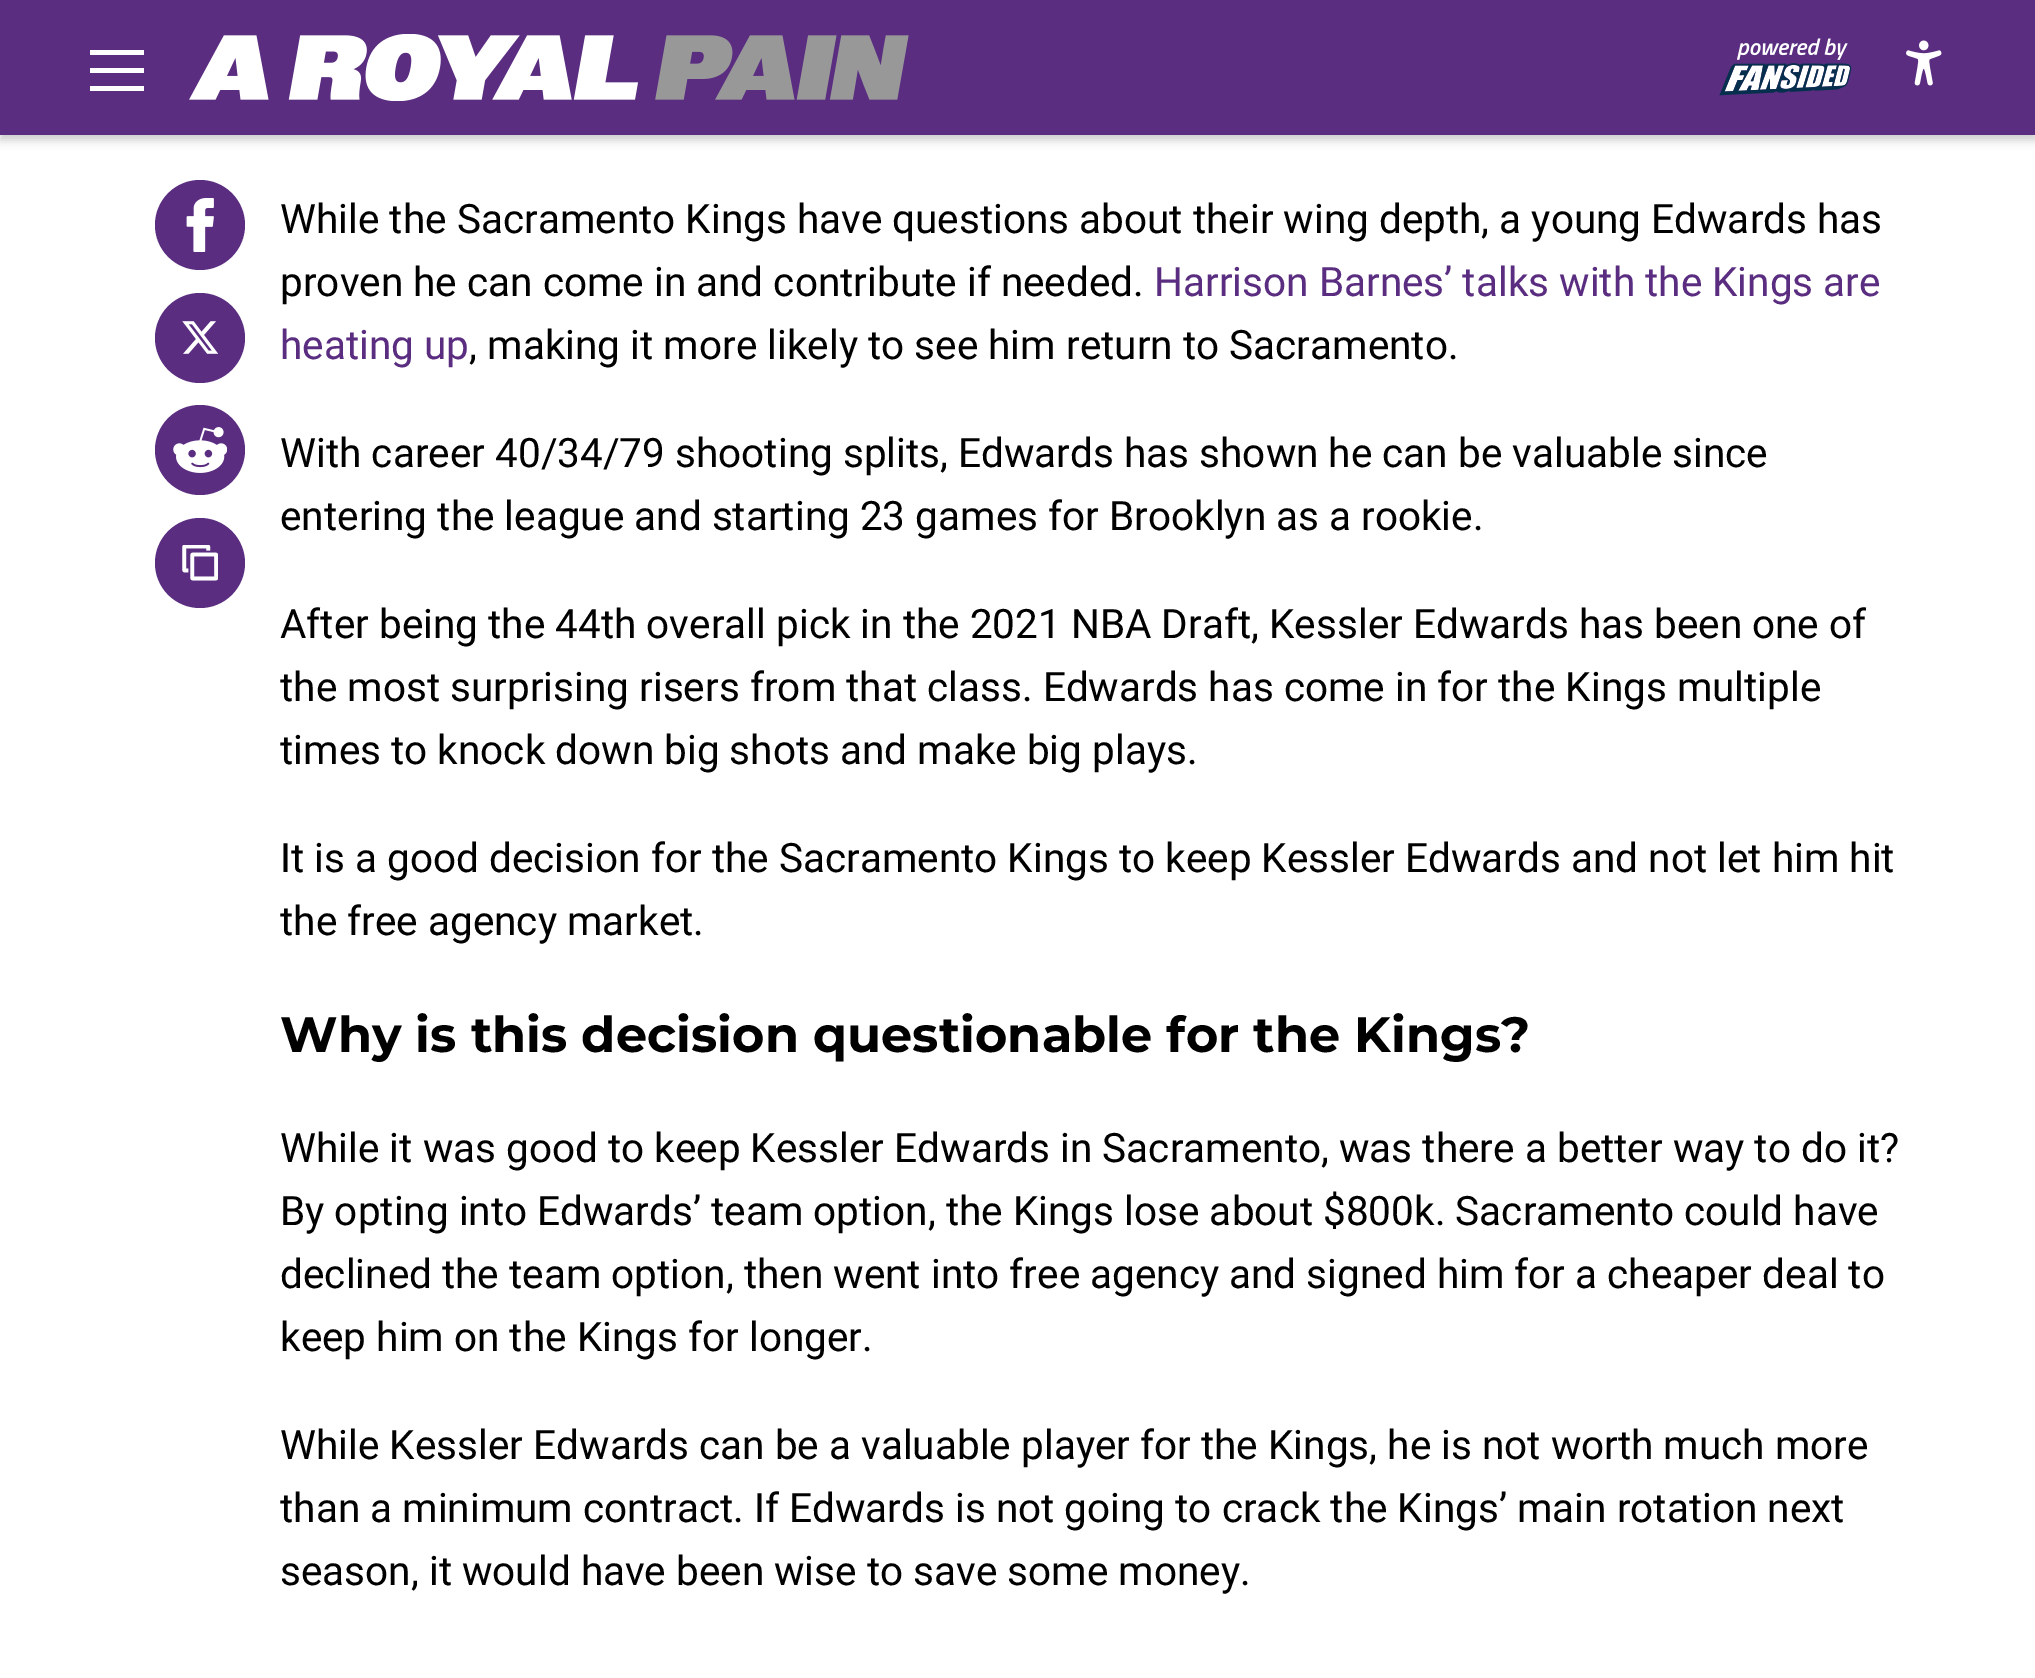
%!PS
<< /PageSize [2035 1678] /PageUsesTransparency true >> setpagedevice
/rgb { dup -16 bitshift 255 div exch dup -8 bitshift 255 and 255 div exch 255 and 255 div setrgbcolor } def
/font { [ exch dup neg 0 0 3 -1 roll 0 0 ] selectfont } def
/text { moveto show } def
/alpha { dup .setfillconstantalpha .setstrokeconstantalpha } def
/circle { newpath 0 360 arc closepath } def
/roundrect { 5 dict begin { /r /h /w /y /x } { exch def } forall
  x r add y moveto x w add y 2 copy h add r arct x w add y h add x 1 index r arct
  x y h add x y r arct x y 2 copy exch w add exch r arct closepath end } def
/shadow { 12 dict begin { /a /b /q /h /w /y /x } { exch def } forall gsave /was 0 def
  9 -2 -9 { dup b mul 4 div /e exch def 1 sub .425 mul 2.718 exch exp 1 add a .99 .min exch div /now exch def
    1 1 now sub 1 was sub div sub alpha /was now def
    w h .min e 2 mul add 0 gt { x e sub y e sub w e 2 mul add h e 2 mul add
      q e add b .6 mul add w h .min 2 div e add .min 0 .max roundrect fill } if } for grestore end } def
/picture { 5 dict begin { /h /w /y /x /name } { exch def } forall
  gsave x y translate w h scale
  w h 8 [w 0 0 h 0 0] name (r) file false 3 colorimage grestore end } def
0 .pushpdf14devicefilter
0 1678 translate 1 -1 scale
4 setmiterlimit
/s1 { /Roboto-Regular 40.5 font 16#000000 rgb } def
/s2 { /Roboto-Regular 40.5 font 16#5A2D81 rgb } def
/s3 { /Montserrat-Thin 49.5 font 16#000000 rgb } def
16#FFFFFF rgb
0 0 2035 1678 rectfill
16#000000 rgb
0 5 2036 135 0 4.5 0.2 shadow
16#5A2D81 rgb
0 0 2035 135 rectfill
16#FFFFFF rgb
90 50 54 5 rectfill
90 68 54 5 rectfill
90 86 54 5 rectfill
(pic1.raw) 189 34 720 67 picture
(pic2.raw) 1719 38 133 58 picture
(pic3.raw) 1906 40 36 46 picture
16#5A2D81 rgb
200 225 45 circle fill
(pic4.raw) 186 198 28 54 picture
200 338 45 circle fill
(pic5.raw) 182 321 36 33 picture
200 450 45 circle fill
(pic6.raw) 173 427 54 46 picture
200 563 45 circle fill
(pic7.raw) 182 545 36 36 picture
s1
(While the Sacramento Kings have questions about their wing depth, a young Edwards has) 280 233 text
(proven he can come in and contribute if needed.) 280 296 text
s2
(Harrison Barnes’ talks with the Kings are) 1154 296 text
(heating up) 280 359 text
s1
(, making it more likely to see him return to Sacramento.) 469 359 text
(With career 40/34/79 shooting splits, Edwards has shown he can be valuable since) 280 467 text
(entering the league and starting 23 games for Brooklyn as a rookie.) 280 530 text
(After being the 44th overall pick in the 2021 NBA Draft, Kessler Edwards has been one of) 280 638 text
(the most surprising risers from that class. Edwards has come in for the Kings multiple) 280 701 text
(times to knock down big shots and make big plays.) 280 764 text
(It is a good decision for the Sacramento Kings to keep Kessler Edwards and not let him hit) 280 872 text
(the free agency market.) 280 935 text
s3
(Why is this decision questionable for the Kings?) 280 1052 text
s1
(While it was good to keep Kessler Edwards in Sacramento, was there a better way to do it?) 280 1162 text
(By opting into Edwards’ team option, the Kings lose about $800k. Sacramento could have) 280 1225 text
(declined the team option, then went into free agency and signed him for a cheaper deal to) 280 1288 text
(keep him on the Kings for longer.) 280 1351 text
(While Kessler Edwards can be a valuable player for the Kings, he is not worth much more) 280 1459 text
(than a minimum contract. If Edwards is not going to crack the Kings’ main rotation next) 280 1522 text
(season, it would have been wise to save some money.) 280 1585 text
.poppdf14devicefilter showpage
